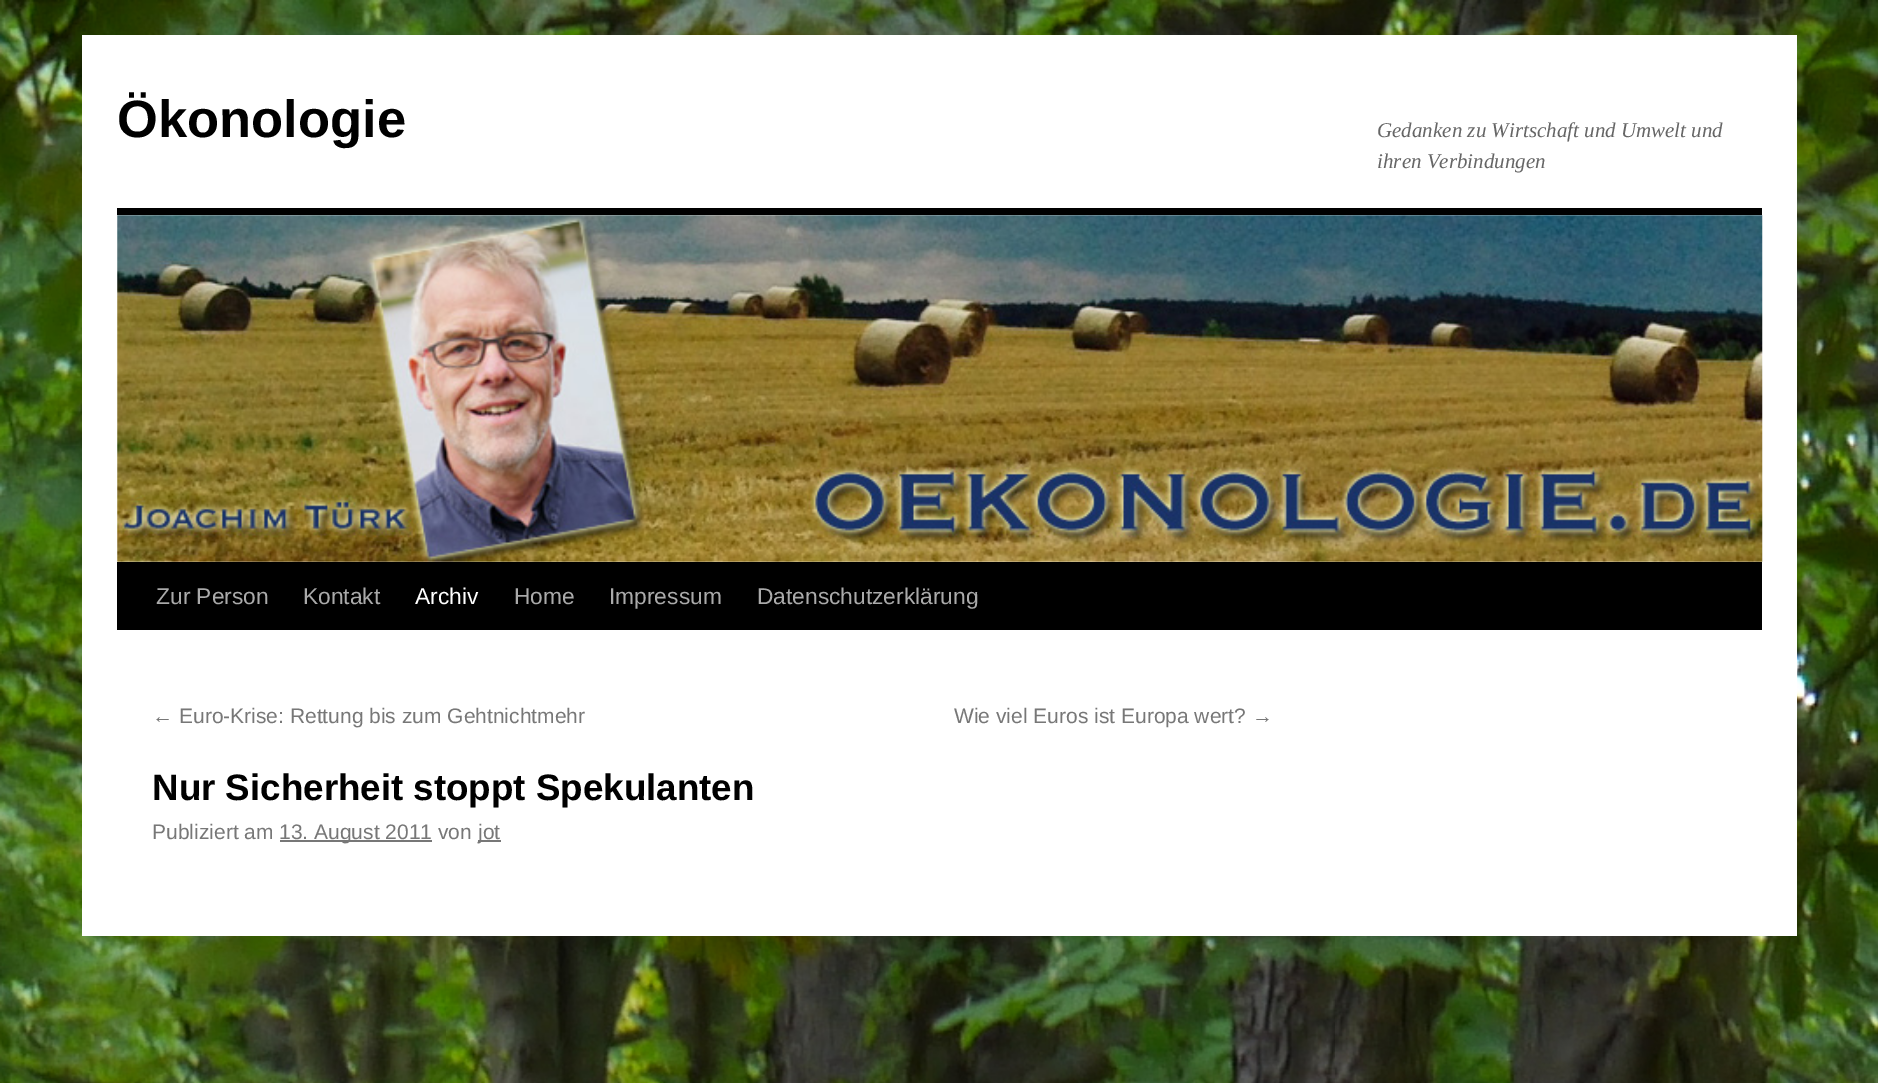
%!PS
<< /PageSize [1878 1083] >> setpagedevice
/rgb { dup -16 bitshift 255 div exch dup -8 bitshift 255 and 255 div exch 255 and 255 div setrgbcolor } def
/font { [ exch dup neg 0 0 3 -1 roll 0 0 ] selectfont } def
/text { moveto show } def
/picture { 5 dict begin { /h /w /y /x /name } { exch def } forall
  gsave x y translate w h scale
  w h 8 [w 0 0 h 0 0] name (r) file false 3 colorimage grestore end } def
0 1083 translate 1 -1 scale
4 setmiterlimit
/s1 { /LiberationSans-Bold 52.5 font 16#000000 rgb } def
/s2 { /LiberationSerif-Italic 21 font 16#666666 rgb } def
/s3 { /LiberationSans-Regular 22.75 font 16#AAAAAA rgb } def
/s4 { /LiberationSans-Regular 22.75 font 16#FFFFFF rgb } def
/s5 { /LiberationSans-Regular 21 font 16#777777 rgb } def
/s6 { /LiberationSans-Bold 36.75 font 16#000000 rgb } def
16#FFFFFF rgb
0 0 1878 1083 rectfill
(pic1.raw) 0 0 1878 1083 picture
82 35 1715 901 rectfill
s1
(Ökonologie) 117 137 text
s2
(Gedanken zu Wirtschaft und Umwelt und) 1377 137 text
(ihren Verbindungen) 1377 168 text
16#000000 rgb
117 208 1645 7 rectfill
117 562 1645 68 rectfill
(pic2.raw) 117 215 1646 347 picture
s3
(Zur Person) 156 604 text
(Kontakt) 303 604 text
s4
(Archiv) 415 604 text
s3
(Home) 514 604 text
(Impressum) 609 604 text
(Datenschutzerklärung) 757 604 text
s5
(← Euro-Krise: Rettung bis zum Gehtnichtmehr) 152 723 text
(Wie viel Euros ist Europa wert? →) 954 723 text
s6
(Nur Sicherheit stoppt Spekulanten) 152 800 text
s5
(Publiziert am) 152 839 text
280 840 152 2 rectfill
(13. August 2011 von) 279 839 text
478 840 23 2 rectfill
(jot) 478 839 text
showpage
